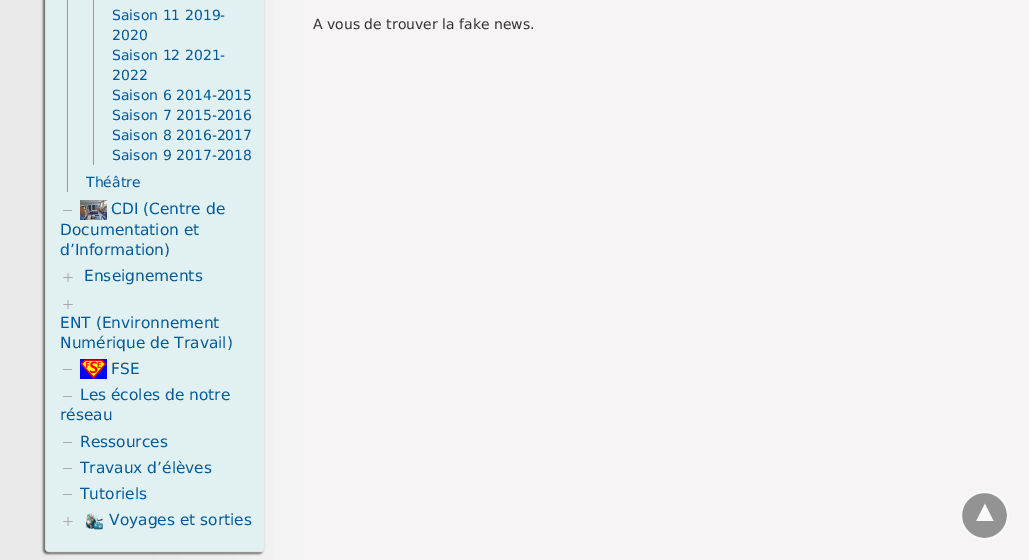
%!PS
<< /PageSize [1029 560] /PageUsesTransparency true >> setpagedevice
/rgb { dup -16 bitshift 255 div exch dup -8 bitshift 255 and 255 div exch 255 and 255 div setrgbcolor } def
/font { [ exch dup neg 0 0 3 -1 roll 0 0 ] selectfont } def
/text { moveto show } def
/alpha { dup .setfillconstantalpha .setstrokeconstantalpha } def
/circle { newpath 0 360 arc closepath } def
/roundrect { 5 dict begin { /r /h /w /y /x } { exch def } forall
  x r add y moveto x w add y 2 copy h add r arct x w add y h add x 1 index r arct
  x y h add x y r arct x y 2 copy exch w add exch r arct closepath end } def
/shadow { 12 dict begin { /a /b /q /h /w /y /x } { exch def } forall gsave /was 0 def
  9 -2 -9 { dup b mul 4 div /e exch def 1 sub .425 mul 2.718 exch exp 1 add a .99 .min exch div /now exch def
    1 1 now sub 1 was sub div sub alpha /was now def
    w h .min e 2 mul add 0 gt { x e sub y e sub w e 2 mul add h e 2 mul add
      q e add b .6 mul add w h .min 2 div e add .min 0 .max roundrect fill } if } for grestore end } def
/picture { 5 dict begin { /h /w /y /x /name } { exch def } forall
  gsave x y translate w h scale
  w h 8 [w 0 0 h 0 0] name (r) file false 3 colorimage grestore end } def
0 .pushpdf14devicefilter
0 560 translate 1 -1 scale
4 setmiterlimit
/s1 { /DejaVuSans-Regular 14 font 16#005A9C rgb } def
/s2 { /DejaVuSans-Regular 15.4 font 16#005A9C rgb } def
/s3 { /DejaVuSans-Regular 14 font 16#333333 rgb } def
/s4 { /LiberationSans-Regular 30 font 16#FAF9F9 rgb } def
16#EEEEEE rgb
0 0 1029 560 rectfill
(pic1.raw) 0 0 1029 560 picture
16#666666 rgb
43 -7 220 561 4 1 1 shadow
16#E1F0F1 rgb
45.5 -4.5 219 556 3.5 roundrect gsave fill grestore
16#E3E3E3 rgb
stroke
16#999999 rgb
67 0 1 192 rectfill
93 0 1 165 rectfill
s1
(Saison 11 2019-) 112 20 text
(2020) 112 40 text
(Saison 12 2021-) 112 60 text
(2022) 112 80 text
(Saison 6 2014-2015) 112 100 text
(Saison 7 2015-2016) 112 120 text
(Saison 8 2016-2017) 112 140 text
(Saison 9 2017-2018) 112 160 text
(Théâtre) 86 187 text
(pic2.raw) 80 200 27 20 picture
s2
(CDI \(Centre de) 111 214 text
(Documentation et) 60 235 text
16#AAAAAA rgb
63 210 9 1 rectfill
s2
(d’Information\)) 60 255 text
(pic3.raw) 63 273 10 9 picture
(Enseignements) 84 281 text
(pic3.raw) 63 300 10 9 picture
(ENT \(Environnement) 60 328 text
(Numérique de Travail\)) 60 348 text
(pic4.raw) 80 359 27 20 picture
(FSE) 111 374 text
16#AAAAAA rgb
63 369 9 1 rectfill
s2
(Les écoles de notre) 80 400 text
16#AAAAAA rgb
63 396 9 1 rectfill
s2
(réseau) 60 420 text
(Ressources) 80 447 text
16#AAAAAA rgb
63 442 9 1 rectfill
s2
(Travaux d’élèves) 80 473 text
16#AAAAAA rgb
63 468 9 1 rectfill
s2
(Tutoriels) 80 499 text
16#AAAAAA rgb
63 494 9 1 rectfill
(pic3.raw) 63 517 10 9 picture
(pic5.raw) 85 512 18 19 picture
s2
(Voyages et sorties) 109 525 text
s3
(A vous de trouver la fake news.) 313 29 text
16#949393 rgb
984.5 515.5 23.5 circle gsave fill grestore
16#FAF9F9 rgb
2 setlinewidth
stroke
s4
(▲) 970 521 text
.poppdf14devicefilter showpage
